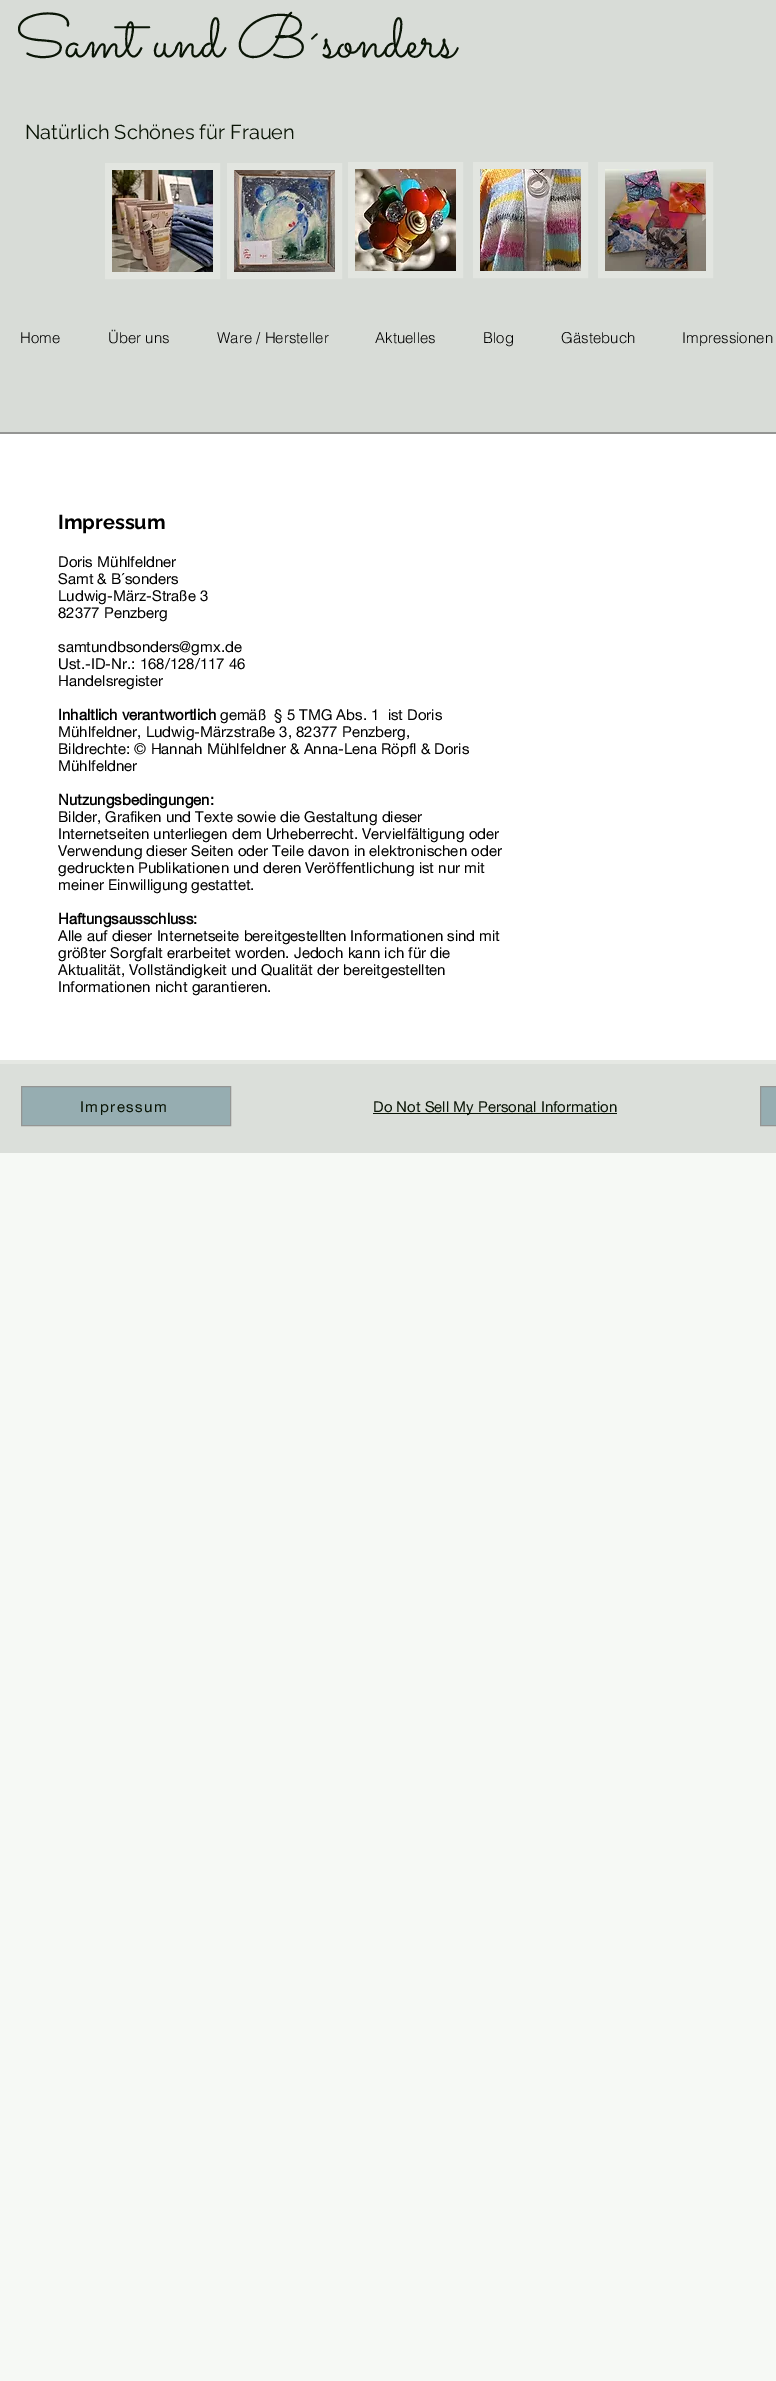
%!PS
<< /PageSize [776 2381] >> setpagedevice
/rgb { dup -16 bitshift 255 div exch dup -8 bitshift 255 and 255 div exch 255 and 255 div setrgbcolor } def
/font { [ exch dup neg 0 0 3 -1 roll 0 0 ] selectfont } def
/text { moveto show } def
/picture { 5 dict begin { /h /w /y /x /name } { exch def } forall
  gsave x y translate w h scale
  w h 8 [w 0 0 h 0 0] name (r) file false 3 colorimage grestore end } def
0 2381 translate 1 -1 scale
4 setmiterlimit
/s1 { /Sacramento-Regular 61 font 16#091405 rgb } def
/s2 { /Raleway-Regular 20 font 16#091405 rgb } def
/s3 { /helvetica-Light 15 font 16#000000 rgb } def
/s4 { /Raleway-Bold 20 font 16#000000 rgb } def
/s5 { /helveticaneue-Regular 15 font 16#000000 rgb } def
/s6 { /helveticaneue-Bold 15 font 16#000000 rgb } def
/s7 { /helveticaneue-Regular 15 font 16#091405 rgb } def
16#F6F9F5 rgb
0 0 776 2381 rectfill
16#D8DCD7 rgb
0 0 776 432 rectfill
s1
(Samt und B´sonders) 15 57 text
s2
(Natürlich Schönes für Frauen) 25 139 text
16#E2E5E0 rgb
9 setlinewidth
109.5 167.5 106 107 rectstroke
(pic1.raw) 112 170 101 102 picture
231.5 167.5 106 107 rectstroke
(pic2.raw) 234 170 101 102 picture
352.5 166.5 106 107 rectstroke
(pic3.raw) 355 169 101 102 picture
477.5 166.5 106 107 rectstroke
(pic4.raw) 480 169 101 102 picture
602.5 166.5 106 107 rectstroke
(pic5.raw) 605 169 101 102 picture
s3
(Home) 20 343 text
(Über uns) 108 343 text
(Ware / Hersteller) 217 343 text
(Aktuelles) 375 343 text
(Blog) 483 343 text
(Gästebuch) 561 343 text
(Impressionen) 682 343 text
16#949593 rgb
0 432 776 2 rectfill
16#FFFFFF rgb
0 434 776 626 rectfill
s4
(Impressum) 58 529 text
s5
(Doris Mühlfeldner) 58 567 text
(Samt & B´sonders) 58 584 text
(Ludwig-März-Straße 3) 58 601 text
(82377 Penzberg) 58 618 text
(samtundbsonders@gmx.de) 58 652 text
(Ust.-ID-Nr.: 168/128/117 46) 58 669 text
(Handelsregister) 58 686 text
s6
(Inhaltlich verantwortlich) 58 720 text
s5
(gemäß  § 5 TMG Abs. 1  ist Doris) 220 720 text
(Mühlfeldner, Ludwig-Märzstraße 3, 82377 Penzberg,) 58 737 text
(Bildrechte: © Hannah Mühlfeldner & Anna-Lena Röpfl & Doris) 58 754 text
(Mühlfeldner) 58 771 text
s6
(Nutzungsbedingungen:) 58 805 text
s5
(Bilder, Grafiken und Texte sowie die Gestaltung dieser) 58 822 text
(Internetseiten unterliegen dem Urheberrecht. Vervielfältigung oder) 58 839 text
(Verwendung dieser Seiten oder Teile davon in elektronischen oder) 58 856 text
(gedruckten Publikationen und deren Veröffentlichung ist nur mit) 58 873 text
(meiner Einwilligung gestattet.) 58 890 text
s6
(Haftungsausschluss:) 58 924 text
s5
(Alle auf dieser Internetseite bereitgestellten Informationen sind mit) 58 941 text
(größter Sorgfalt erarbeitet worden. Jedoch kann ich für die) 58 958 text
(Aktualität, Vollständigkeit und Qualität der bereitgestellten) 58 975 text
(Informationen nicht garantieren.) 58 992 text
16#E5E8E3 rgb
0 1060 776 4 rectfill
16#DBDFDA rgb
0 1064 776 89 rectfill
16#96ADB1 rgb
21.5 1086.5 moveto 230.5 1086.5 lineto 230.5 1125.5 lineto 21.5 1125.5 lineto closepath gsave fill grestore
16#949593 rgb
1 setlinewidth
stroke
16#091405 rgb
80 1112 moveto 1.5 0 (Impressum) ashow
373 1113 244 1 rectfill
(Do Not Sell My Personal Information) 373 1112 text
16#96ADB1 rgb
760.5 1086.5 moveto 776.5 1086.5 lineto 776.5 1125.5 lineto 760.5 1125.5 lineto closepath gsave fill grestore
16#949593 rgb
stroke
showpage
